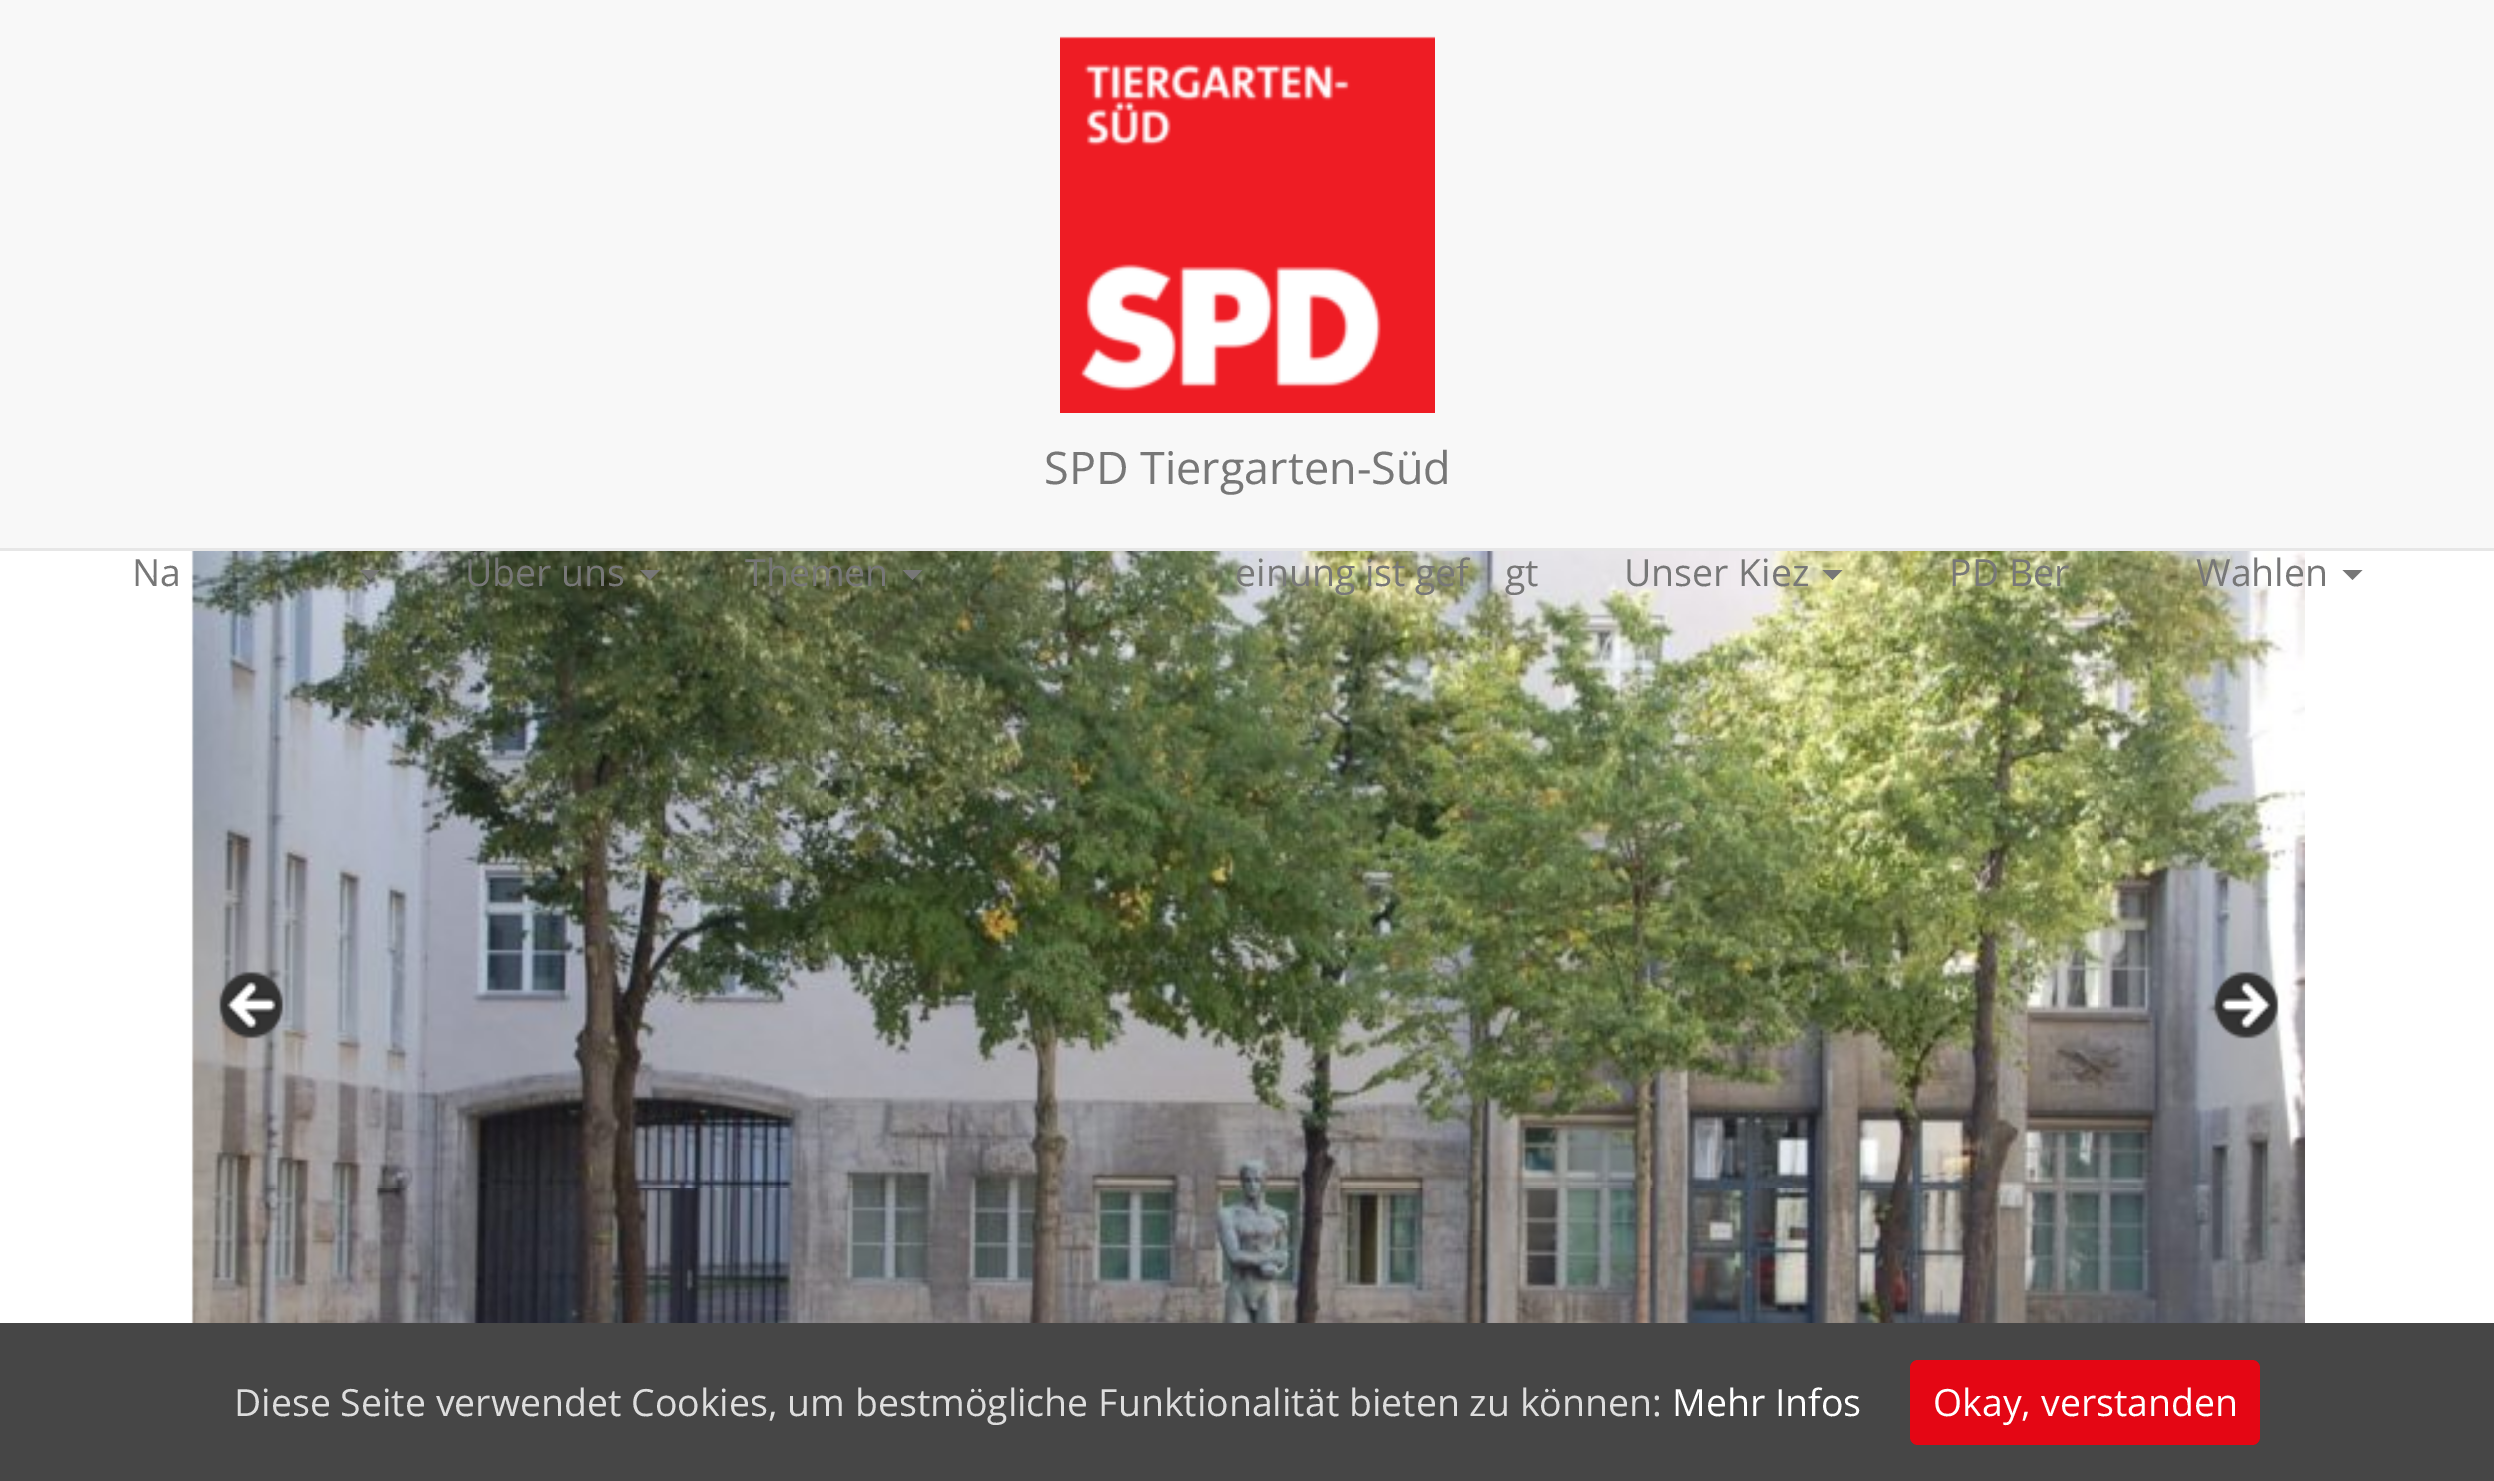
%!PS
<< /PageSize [2494 1481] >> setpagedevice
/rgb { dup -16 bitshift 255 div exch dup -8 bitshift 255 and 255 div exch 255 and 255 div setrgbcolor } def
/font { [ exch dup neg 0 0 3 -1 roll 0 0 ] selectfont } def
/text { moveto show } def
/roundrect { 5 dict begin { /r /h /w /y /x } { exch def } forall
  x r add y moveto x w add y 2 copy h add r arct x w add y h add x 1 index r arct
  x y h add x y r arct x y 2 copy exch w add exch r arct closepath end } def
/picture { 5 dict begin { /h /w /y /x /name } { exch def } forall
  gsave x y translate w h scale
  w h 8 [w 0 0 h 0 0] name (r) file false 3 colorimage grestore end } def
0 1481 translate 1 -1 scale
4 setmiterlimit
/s1 { /OpenSans-Regular 45 font 16#777777 rgb } def
/s2 { /OpenSans-Regular 37.5 font 16#777777 rgb } def
/s3 { /OpenSans-Regular 37.5 font 16#DDDDDD rgb } def
/s4 { /OpenSans-Regular 37.5 font 16#FFFFFF rgb } def
16#FFFFFF rgb
0 0 2494 1481 rectfill
16#F8F8F8 rgb
0 0 2494 548 rectfill
16#E7E7E7 rgb
0 548 2494 3 rectfill
(pic1.raw) 1060 36 375 377 picture
s1
(SPD Tiergarten-Süd) 1044 484 text
s2
(Na) 132 586 text
(pic2.raw) 191 551 2114 772 picture
360 570 moveto 380 570 lineto 370 580 lineto closepath fill
(Über uns) 465 586 text
640 570 moveto 660 570 lineto 650 580 lineto closepath fill
(Themen) 745 586 text
902.5 570 moveto 922.5 570 lineto 912.5 580 lineto closepath fill
(einung ist gef) 1235 586 text
(gt) 1505 586 text
(Unser Kiez) 1624 586 text
1822.5 570 moveto 1842.5 570 lineto 1832.5 580 lineto closepath fill
(PD Ber) 1949 586 text
(Wahlen) 2196 586 text
2342.5 570 moveto 2362.5 570 lineto 2352.5 580 lineto closepath fill
(pic3.raw) 219 971 65 68 picture
(pic4.raw) 2214 971 65 68 picture
16#464646 rgb
0 1323 2494 158 rectfill
s3
(Diese Seite verwendet Cookies, um bestmögliche Funktionalität bieten zu können:) 234 1416 text
s4
(Mehr Infos) 1672 1416 text
16#E40614 rgb
1910 1360 350 85 8 roundrect fill
s4
(Okay, verstanden) 1933 1416 text
showpage
